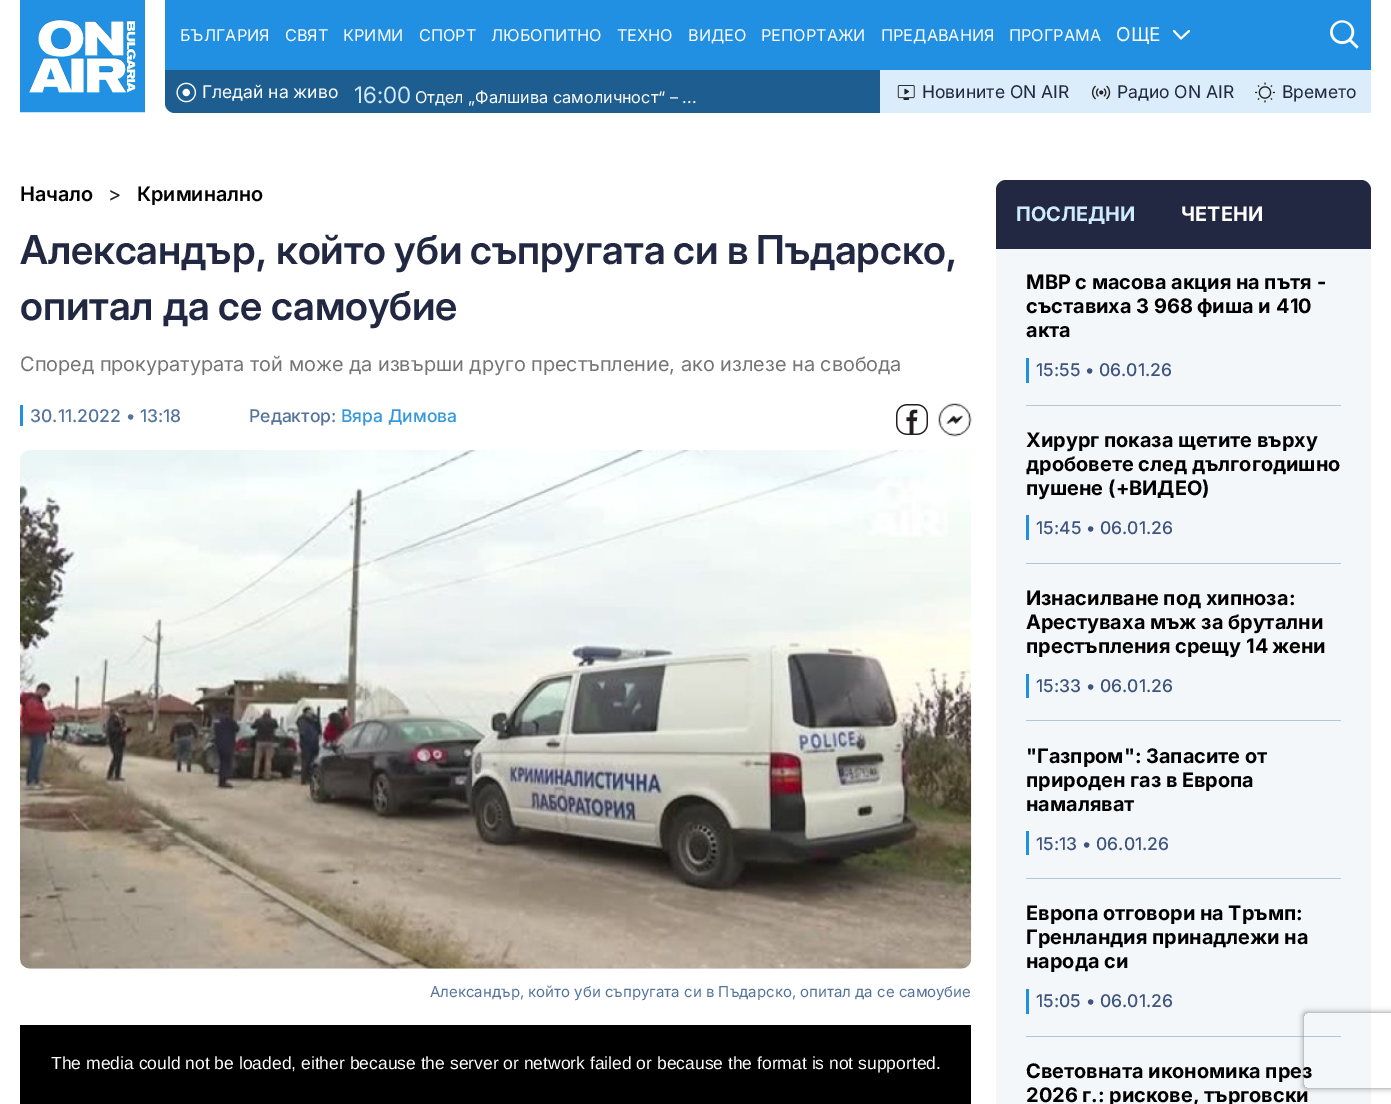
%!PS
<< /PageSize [1391 1104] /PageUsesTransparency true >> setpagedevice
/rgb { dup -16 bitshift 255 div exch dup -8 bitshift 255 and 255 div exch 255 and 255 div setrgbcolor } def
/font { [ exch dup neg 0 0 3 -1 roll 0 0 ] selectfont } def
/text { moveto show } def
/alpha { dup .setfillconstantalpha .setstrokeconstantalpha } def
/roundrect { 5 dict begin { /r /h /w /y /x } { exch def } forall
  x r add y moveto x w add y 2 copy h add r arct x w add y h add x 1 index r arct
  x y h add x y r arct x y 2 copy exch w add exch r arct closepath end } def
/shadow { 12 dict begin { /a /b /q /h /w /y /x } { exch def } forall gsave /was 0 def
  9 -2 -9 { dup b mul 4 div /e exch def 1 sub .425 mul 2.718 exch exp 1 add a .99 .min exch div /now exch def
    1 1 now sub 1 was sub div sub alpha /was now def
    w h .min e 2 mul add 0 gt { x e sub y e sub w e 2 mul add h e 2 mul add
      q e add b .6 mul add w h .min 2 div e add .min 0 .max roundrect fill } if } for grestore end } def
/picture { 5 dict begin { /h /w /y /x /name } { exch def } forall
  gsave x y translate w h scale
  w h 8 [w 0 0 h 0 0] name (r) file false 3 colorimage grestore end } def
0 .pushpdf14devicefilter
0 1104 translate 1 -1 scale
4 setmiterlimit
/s1 { /Inter-Regular 16.25 font 16#FFFFFF rgb } def
/s2 { /Inter-Regular 19 font 16#FFFFFF rgb } def
/s3 { /Inter-Regular 17.5 font 16#FFFFFF rgb } def
/s4 { /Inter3-Regular 22.5 font 16#CEEAFF rgb } def
/s5 { /Inter-Regular 17.5 font 16#222842 rgb } def
/s6 { /Inter-SemiBold 20 font 16#000000 rgb } def
/s7 { /Inter-Regular 20 font 16#222222 rgb } def
/s8 { /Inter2-SemiBold 40 font 16#222842 rgb } def
/s9 { /Inter3-SemiBold 40 font 16#222842 rgb } def
/s10 { /Inter2-Regular 20 font 16#767575 rgb } def
/s11 { /Inter-Regular 20 font 16#767575 rgb } def
/s12 { /Inter-Medium 17.5 font 16#54759B rgb } def
/s13 { /Inter-Medium 17.5 font 16#3498DB rgb } def
/s14 { /Inter-Regular 15 font 16#54759B rgb } def
/s15 { /LiberationSans-Regular 17.5 font 16#FFFFFF rgb } def
/s16 { /Inter-Bold 20 font 16#CEEAFF rgb } def
/s17 { /Inter-Bold 20 font 16#FFFFFF rgb } def
/s18 { /Inter-Bold 20 font 16#000000 rgb } def
/s19 { /Inter2-Bold 20 font 16#000000 rgb } def
/s20 { /Inter-Medium 17.5 font 16#3E547D rgb } def
16#FFFFFF rgb
0 0 1391 1104 rectfill
(pic1.raw) 20 0 125 113 picture
16#2190E2 rgb
165 0 1206 70 rectfill
s1
(БЪЛГАРИЯ) 180 41 text
(СВЯТ) 285 41 text
(КРИМИ) 343 41 text
(СПОРТ) 419 41 text
(ЛЮБОПИТНО) 491 41 text
(ТЕХНО) 617 41 text
(ВИДЕО) 688 41 text
(РЕПОРТАЖИ) 761 41 text
(ПРЕДАВАНИЯ) 881 41 text
(ПРОГРАМА) 1009 41 text
1.9 setlinewidth
1 setlinecap
1 setlinejoin
1174 31 moveto 1181 38.5 lineto 1189 31 lineto stroke
s2
(ОЩЕ) 1116 41 text
(pic2.raw) 1330 20 29 29 picture
16#1D5D8F rgb
165 70 moveto 1371 70 lineto 1371 113 lineto 175 113 lineto 169.5 113 165 108.5 165 103 curveto closepath fill
(pic3.raw) 176 82 21 21 picture
s3
(Гледай на живо) 202 98 text
s4
(16:00) 354 103 text
s1
(Отдел „Фалшива самоличност“ – ...) 415 103 text
16#DBEDFA rgb
880 70 491 43 rectfill
(pic4.raw) 897 85 18 15 picture
s5
(Новините ON AIR) 922 98 text
(pic5.raw) 1091 85 20 15 picture
(Радио ON AIR) 1117 98 text
(pic6.raw) 1255 82 20 21 picture
(Времето) 1282 98 text
s6
(Начало) 20 201 text
s7
(>) 108 201 text
s6
(Криминално) 137 201 text
s8
(Александър) 20 264 text
s9
(,) 255 264 text
/Inter2-SemiBold 40 font
276 264 moveto -1 0 32 (който уби съпругата си в Пъдарско) widthshow
s9
(,) 945 264 text
s8
(опитал да се самоубие) 20 320 text
s10
(Според прокуратурата той може да извърши друго престъпление) 20 371 text
s11
(,) 669 371 text
s10
(ако излезе на свобода) 681 371 text
s12
(30.11.2022 • 13:18) 30 422 text
16#2190E2 rgb
20 405 3 21 rectfill
s12
(Редактор:) 249 422 text
s13
(Вяра Димова) 341 422 text
(pic7.raw) 896 404 32 31 picture
(pic8.raw) 938 403 34 34 picture
(pic9.raw) 20 450 952 519 picture
s14
(Александър, който уби съпругата си в Пъдарско, опитал да се самоубие) 430 997 text
16#000000 rgb
20 1025 951 79 rectfill
s15
(The media could not be loaded, either because the server or network failed or because the format is not supported.) 51 1069 text
16#222842 rgb
1006 180 moveto 1361 180 lineto 1366.5 180 1371 184.5 1371 190 curveto 1371 249 lineto 996 249 lineto 996 190 lineto 996 184.5 1000.5 180 1006 180 curveto closepath fill
s16
(ПОСЛЕДНИ) 1016 221 text
s17
(ЧЕТЕНИ) 1181 221 text
16#F3F7FA rgb
996 249 375 855 rectfill
16#B3C7D6 rgb
1026 405 315 1 rectfill
s18
(МВР с масова акция на пътя) 1026 289 text
s19
(-) 1317 289 text
s18
(съставиха) 1026 313 text
s19
(3 968) 1136 313 text
s18
(фиша и) 1197 313 text
s19
(410) 1276 313 text
s18
(акта) 1026 337 text
16#2190E2 rgb
1026 358 3 25 rectfill
s20
(15:55 • 06.01.26) 1036 376 text
16#B3C7D6 rgb
1026 563 315 1 rectfill
s18
(Хирург показа щетите върху) 1026 447 text
(дробовете след дългогодишно) 1026 471 text
(пушене) 1026 495 text
s19
(\(+) 1108 495 text
s18
(ВИДЕО) 1129 495 text
s19
(\)) 1202 495 text
16#2190E2 rgb
1026 515 3 25 rectfill
s20
(15:45 • 06.01.26) 1036 534 text
16#B3C7D6 rgb
1026 720 315 1 rectfill
s18
(Изнасилване под хипноза) 1026 605 text
s19
(:) 1289 605 text
s18
(Арестуваха мъж за брутални) 1026 629 text
(престъпления срещу) 1026 653 text
s19
(14) 1246 653 text
s18
(жени) 1272 653 text
16#2190E2 rgb
1026 674 3 24 rectfill
s20
(15:33 • 06.01.26) 1036 692 text
16#B3C7D6 rgb
1026 878 315 1 rectfill
s19
(") 1026 763 text
s18
(Газпром) 1037 763 text
s19
(":) 1124 763 text
s18
(Запасите от) 1146 763 text
(природен газ в Европа) 1026 787 text
(намаляват) 1026 811 text
16#2190E2 rgb
1026 831 3 24 rectfill
s20
(15:13 • 06.01.26) 1036 850 text
16#B3C7D6 rgb
1026 1036 315 1 rectfill
s18
(Европа отговори на Тръмп) 1026 920 text
s19
(:) 1296 920 text
s18
(Гренландия принадлежи на) 1026 944 text
(народа си) 1026 968 text
16#2190E2 rgb
1026 989 3 25 rectfill
s20
(15:05 • 06.01.26) 1036 1007 text
s18
(Световната икономика през) 1026 1078 text
s19
(2026) 1026 1102 text
s18
(г) 1082 1102 text
s19
(.:) 1091 1102 text
s18
(рискове) 1109 1102 text
s19
(,) 1193 1102 text
s18
(търговски) 1204 1102 text
gsave
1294 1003 moveto 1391 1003 lineto 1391 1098 lineto 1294 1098 lineto closepath 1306.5 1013 moveto 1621.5 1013 lineto 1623 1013 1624 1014 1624 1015.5 curveto 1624 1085.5 lineto 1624 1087 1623 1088 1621.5 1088 curveto 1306.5 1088 lineto 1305 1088 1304 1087 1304 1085.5 curveto 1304 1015.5 lineto 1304 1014 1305 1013 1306.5 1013 curveto closepath eoclip newpath
16#808080 rgb
1304 1013 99 75 2.5 3 1 shadow
grestore
.poppdf14devicefilter showpage
